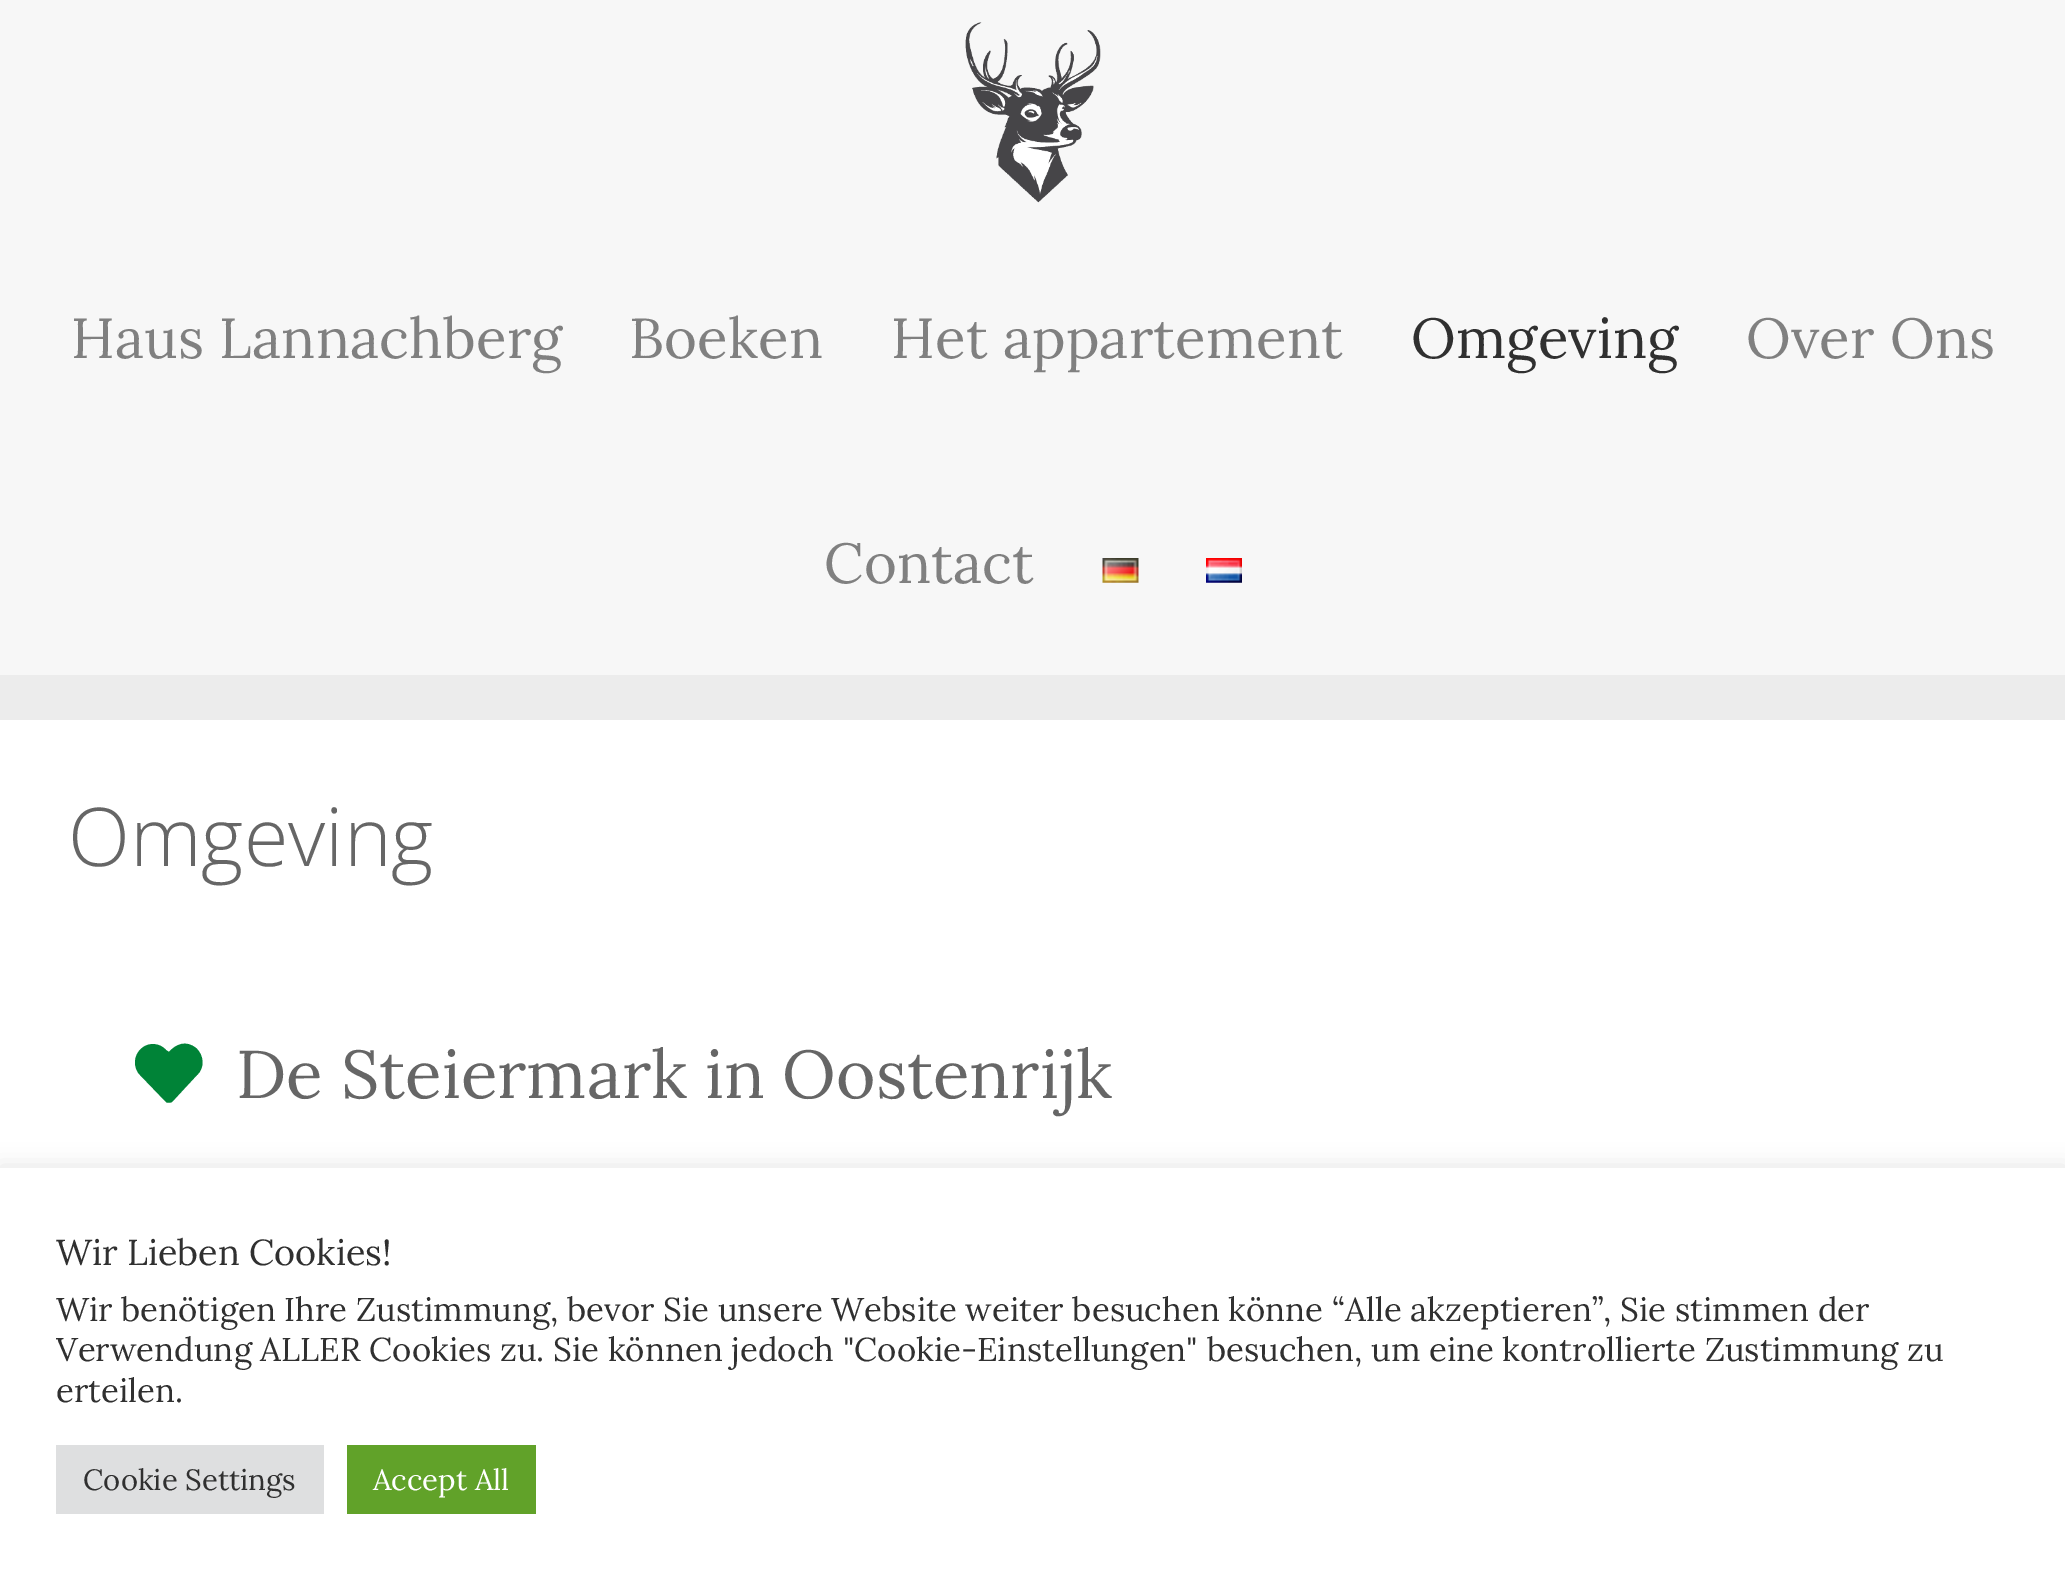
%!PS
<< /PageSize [2065 1581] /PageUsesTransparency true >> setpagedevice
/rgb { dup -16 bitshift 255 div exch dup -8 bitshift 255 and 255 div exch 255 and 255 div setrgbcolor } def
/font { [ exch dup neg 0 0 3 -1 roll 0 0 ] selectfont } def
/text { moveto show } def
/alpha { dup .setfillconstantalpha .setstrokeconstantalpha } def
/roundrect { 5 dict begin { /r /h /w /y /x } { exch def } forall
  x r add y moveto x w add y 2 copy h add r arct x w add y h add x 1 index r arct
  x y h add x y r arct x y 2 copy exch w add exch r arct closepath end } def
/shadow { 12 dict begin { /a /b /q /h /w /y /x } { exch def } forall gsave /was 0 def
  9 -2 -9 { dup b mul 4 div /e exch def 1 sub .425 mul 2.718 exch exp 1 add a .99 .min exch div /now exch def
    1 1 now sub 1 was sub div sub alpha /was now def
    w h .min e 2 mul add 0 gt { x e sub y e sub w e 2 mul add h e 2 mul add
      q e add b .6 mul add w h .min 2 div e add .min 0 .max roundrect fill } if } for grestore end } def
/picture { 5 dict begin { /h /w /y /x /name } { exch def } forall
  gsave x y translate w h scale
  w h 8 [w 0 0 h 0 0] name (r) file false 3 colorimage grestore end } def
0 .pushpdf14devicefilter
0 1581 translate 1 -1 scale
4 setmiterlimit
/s1 { /OpenSans-Light 81 font 16#666666 rgb } def
/s2 { /Lora-Regular 67.5 font 16#666666 rgb } def
/s3 { /Lora-Regular 36 font 16#303030 rgb } def
/s4 { /Lora-Regular 33 font 16#303030 rgb } def
/s5 { /Lora-Regular 29.25 font 16#303030 rgb } def
/s6 { /Lora-Regular 29.25 font 16#FFFFFF rgb } def
16#ECECEC rgb
0 0 2065 1581 rectfill
16#F7F7F7 rgb
0 0 2065 675 rectfill
(pic1.raw) 965 22 136 181 picture
/Lora-Regular 56.25 font
16#808080 rgb
71 358 moveto 0.2 0 (Haus Lannachberg) ashow
629 358 moveto 0.2 0 (Boeken) ashow
891 358 moveto 0.2 0 (Het appartement) ashow
16#303030 rgb
1411 358 moveto 0.2 0 (Omgeving) ashow
16#808080 rgb
1746 358 moveto 0.2 0 (Over Ons) ashow
824 583 moveto 0.2 0 (Contact) ashow
(pic2.raw) 1102 558 37 25 picture
(pic3.raw) 1206 558 36 25 picture
16#FFFFFF rgb
0 720 2065 448 rectfill
s1
(Omgeving) 68 866 text
16#008337 rgb
196 1048 moveto 186 1040 176 1044 169 1052 curveto 166 1050 lineto 160 1043 149 1042 142 1048 curveto 133 1055 133 1068 140 1075 curveto 166 1102 lineto 167 1103 170 1103 172 1102 curveto 197 1075 lineto 205 1068 204 1055 196 1048 curveto closepath fill
s2
(De Steiermark in Oostenrijk) 236 1098 text
16#ACABAB rgb
0 1166 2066 414 0 11 0.3 shadow
16#FFFFFF rgb
0 1168 2065 413 rectfill
s3
(Wir Lieben Cookies!) 56 1265 text
s4
(Wir benötigen Ihre Zustimmung, bevor Sie unsere Website weiter besuchen könne “Alle akzeptieren”, Sie stimmen der) 56 1321 text
(Verwendung ALLER Cookies zu. Sie können jedoch "Cookie-Einstellungen" besuchen, um eine kontrollierte Zustimmung zu) 56 1361 text
(erteilen.) 56 1402 text
16#DEDFE0 rgb
56 1445 268 69 rectfill
s5
(Cookie Settings) 83 1490 text
16#61A229 rgb
347 1445 189 69 rectfill
s6
(Accept All) 373 1490 text
.poppdf14devicefilter showpage
